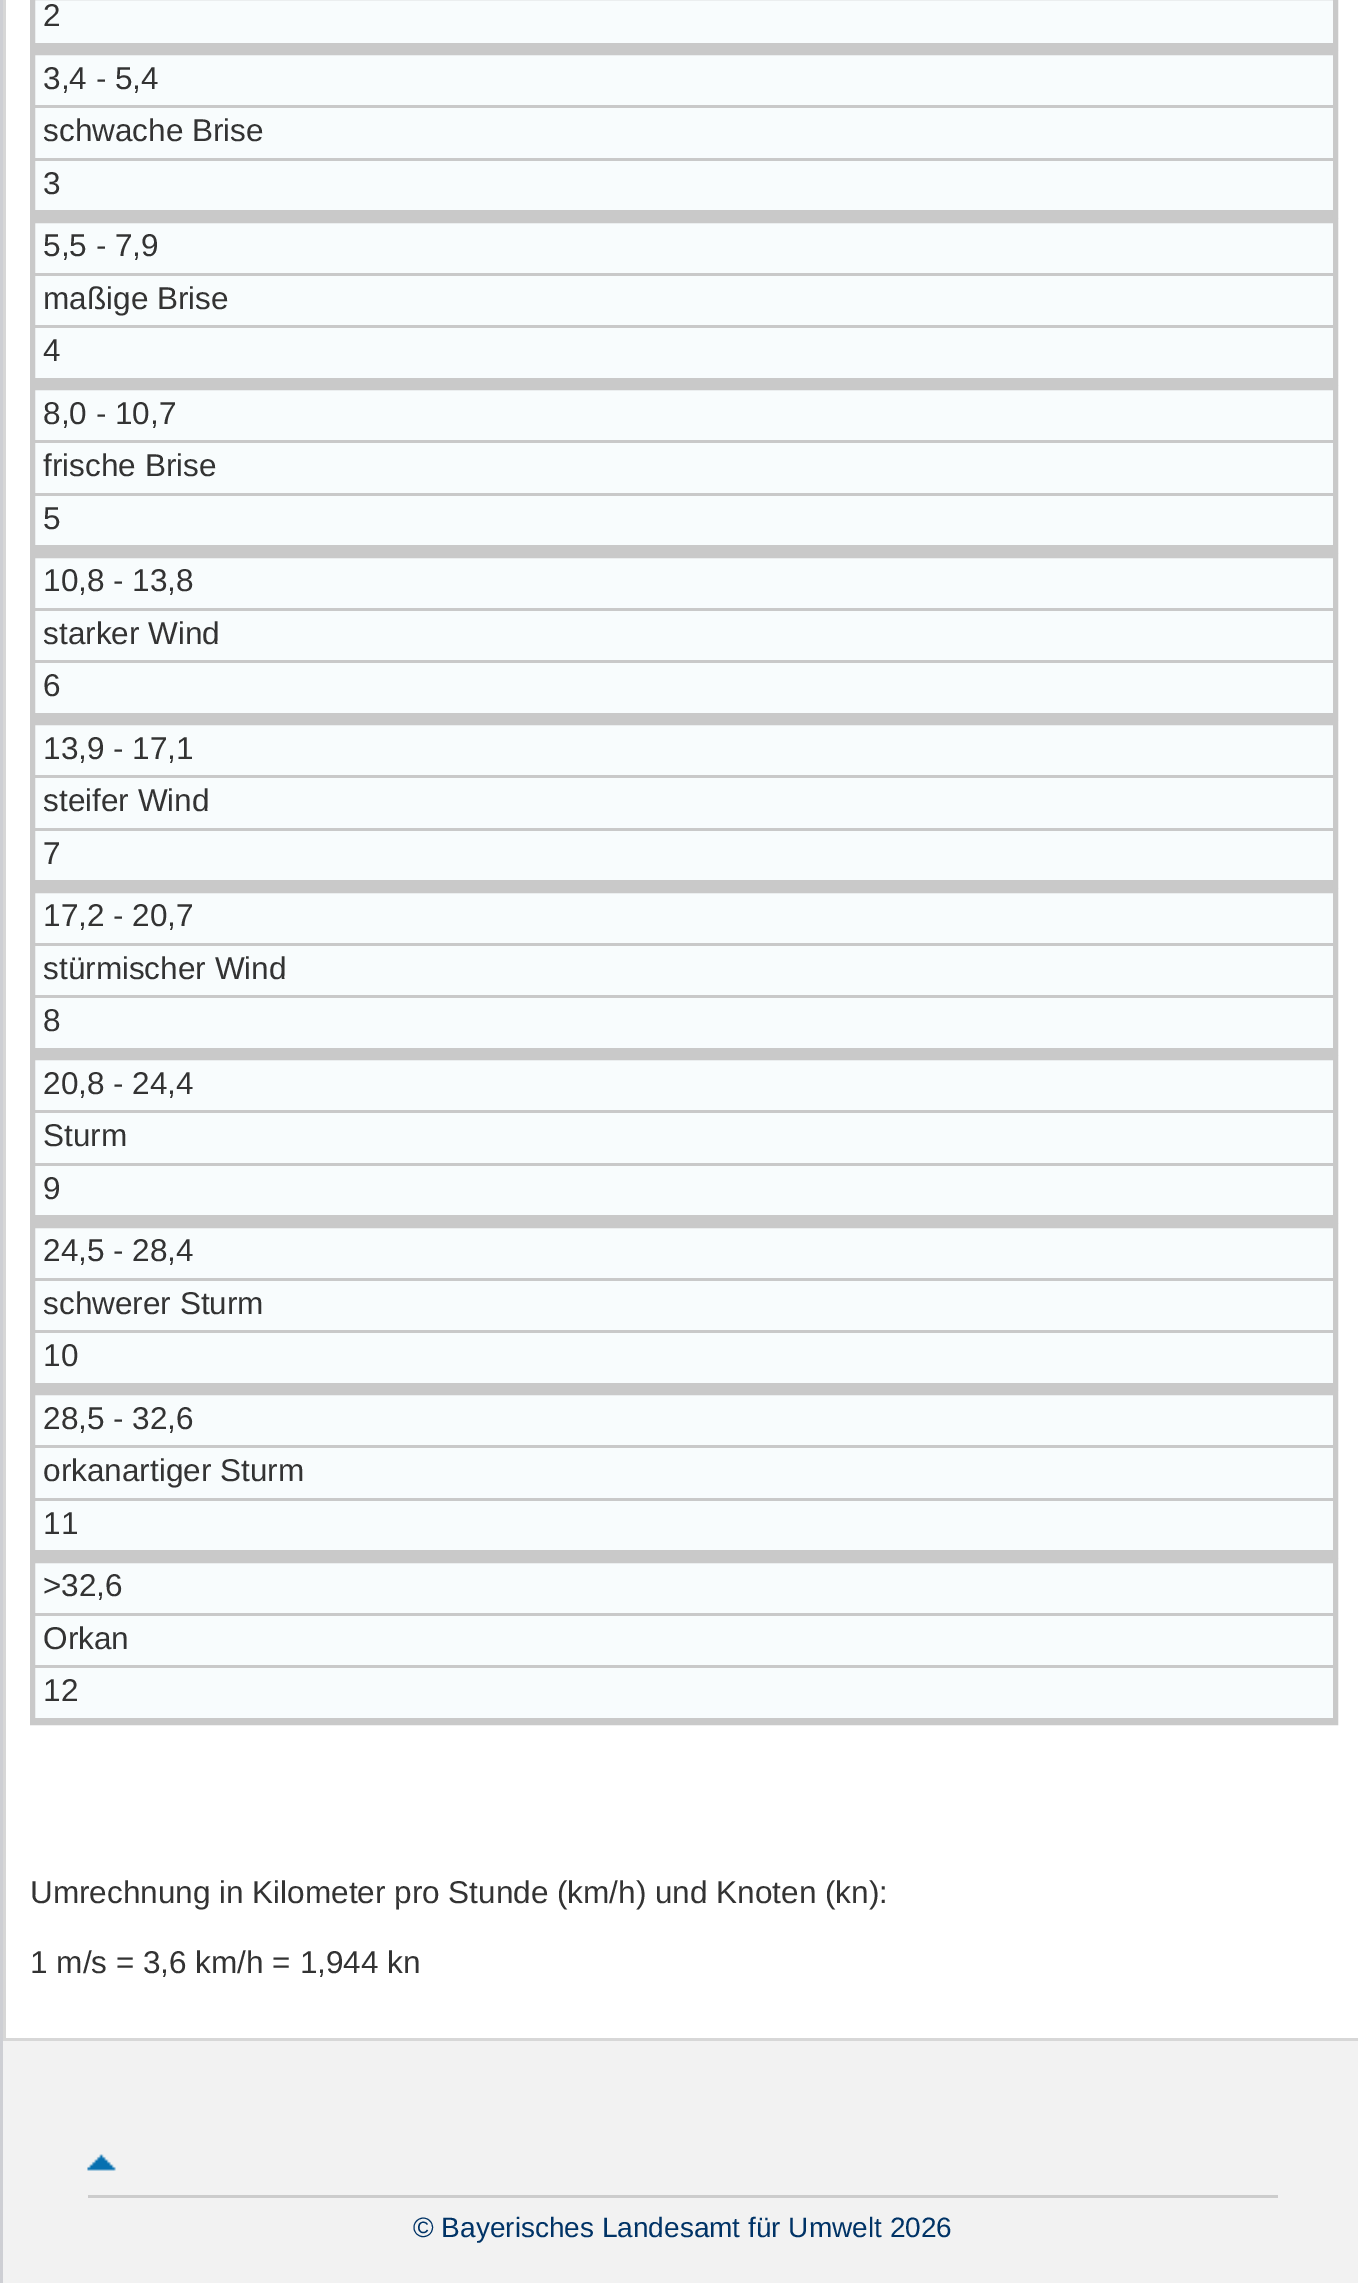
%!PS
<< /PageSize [1358 2283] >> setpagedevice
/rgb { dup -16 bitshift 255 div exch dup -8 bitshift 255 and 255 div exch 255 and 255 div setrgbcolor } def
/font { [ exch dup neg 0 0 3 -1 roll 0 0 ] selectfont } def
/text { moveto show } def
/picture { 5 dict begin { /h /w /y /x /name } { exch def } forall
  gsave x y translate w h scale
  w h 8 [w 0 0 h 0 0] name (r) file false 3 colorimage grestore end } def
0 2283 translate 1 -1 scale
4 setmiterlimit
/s1 { /LiberationSans-Regular 31.5 font 16#333333 rgb } def
/s2 { /LiberationSans-Regular 28 font 16#003366 rgb } def
16#CECFD4 rgb
0 0 1358 2283 rectfill
16#F2F2F2 rgb
3 2041 1355 242 rectfill
16#FFFFFF rgb
6 0 1352 2038 rectfill
16#D7D7D7 rgb
3 2038 1355 3 rectfill
3 0 3 2040 rectfill
16#F8FCFD rgb
35 0 1298 43 rectfill
16#C9C9C9 rgb
5 setlinewidth
32.5 -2.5 1303 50 rectstroke
35 43 1298 2 rectfill
s1
(2) 43 26 text
16#F8FCFD rgb
35 55 1298 155 rectfill
16#C9C9C9 rgb
32.5 52.5 1303 163 rectstroke
35 105 1298 3 rectfill
s1
(3,4 - 5,4) 43 89 text
16#C9C9C9 rgb
35 158 1298 3 rectfill
s1
(schwache Brise) 43 141 text
16#C9C9C9 rgb
35 210 1298 3 rectfill
s1
(3) 43 194 text
16#F8FCFD rgb
35 223 1298 155 rectfill
16#C9C9C9 rgb
32.5 220.5 1303 162 rectstroke
35 273 1298 3 rectfill
s1
(5,5 - 7,9) 43 256 text
16#C9C9C9 rgb
35 325 1298 3 rectfill
s1
(maßige Brise) 43 309 text
16#C9C9C9 rgb
35 378 1298 2 rectfill
s1
(4) 43 361 text
16#F8FCFD rgb
35 390 1298 155 rectfill
16#C9C9C9 rgb
32.5 387.5 1303 163 rectstroke
35 440 1298 3 rectfill
s1
(8,0 - 10,7) 43 424 text
16#C9C9C9 rgb
35 493 1298 3 rectfill
s1
(frische Brise) 43 476 text
16#C9C9C9 rgb
35 545 1298 3 rectfill
s1
(5) 43 529 text
16#F8FCFD rgb
35 558 1298 155 rectfill
16#C9C9C9 rgb
32.5 555.5 1303 162 rectstroke
35 608 1298 3 rectfill
s1
(10,8 - 13,8) 43 591 text
16#C9C9C9 rgb
35 660 1298 3 rectfill
s1
(starker Wind) 43 644 text
16#C9C9C9 rgb
35 713 1298 2 rectfill
s1
(6) 43 696 text
16#F8FCFD rgb
35 725 1298 155 rectfill
16#C9C9C9 rgb
32.5 722.5 1303 163 rectstroke
35 775 1298 3 rectfill
s1
(13,9 - 17,1) 43 759 text
16#C9C9C9 rgb
35 828 1298 3 rectfill
s1
(steifer Wind) 43 811 text
16#C9C9C9 rgb
35 880 1298 3 rectfill
s1
(7) 43 864 text
16#F8FCFD rgb
35 893 1298 155 rectfill
16#C9C9C9 rgb
32.5 890.5 1303 162 rectstroke
35 943 1298 3 rectfill
s1
(17,2 - 20,7) 43 926 text
16#C9C9C9 rgb
35 995 1298 3 rectfill
s1
(stürmischer Wind) 43 979 text
16#C9C9C9 rgb
35 1048 1298 2 rectfill
s1
(8) 43 1031 text
16#F8FCFD rgb
35 1060 1298 155 rectfill
16#C9C9C9 rgb
32.5 1057.5 1303 163 rectstroke
35 1110 1298 3 rectfill
s1
(20,8 - 24,4) 43 1094 text
16#C9C9C9 rgb
35 1163 1298 3 rectfill
s1
(Sturm) 43 1146 text
16#C9C9C9 rgb
35 1215 1298 3 rectfill
s1
(9) 43 1199 text
16#F8FCFD rgb
35 1228 1298 155 rectfill
16#C9C9C9 rgb
32.5 1225.5 1303 162 rectstroke
35 1278 1298 3 rectfill
s1
(24,5 - 28,4) 43 1261 text
16#C9C9C9 rgb
35 1330 1298 3 rectfill
s1
(schwerer Sturm) 43 1314 text
16#C9C9C9 rgb
35 1383 1298 2 rectfill
s1
(10) 43 1366 text
16#F8FCFD rgb
35 1395 1298 155 rectfill
16#C9C9C9 rgb
32.5 1392.5 1303 163 rectstroke
35 1445 1298 3 rectfill
s1
(28,5 - 32,6) 43 1429 text
16#C9C9C9 rgb
35 1498 1298 3 rectfill
s1
(orkanartiger Sturm) 43 1481 text
16#C9C9C9 rgb
35 1550 1298 3 rectfill
s1
(11) 43 1534 text
16#F8FCFD rgb
35 1563 1298 155 rectfill
16#C9C9C9 rgb
32.5 1560.5 1303 162 rectstroke
35 1613 1298 3 rectfill
s1
(>32,6) 43 1596 text
16#C9C9C9 rgb
35 1665 1298 3 rectfill
s1
(Orkan) 43 1649 text
16#C9C9C9 rgb
35 1718 1298 2 rectfill
s1
(12) 43 1701 text
(Umrechnung in Kilometer pro Stunde \(km/h\) und Knoten \(kn\):) 30 1903 text
(1 m/s = 3,6 km/h = 1,944 kn) 30 1973 text
(pic1.raw) 87 2154 29 17 picture
16#CCCCCC rgb
88 2195 1190 3 rectfill
s2
(© Bayerisches Landesamt für Umwelt 2026) 413 2237 text
showpage
